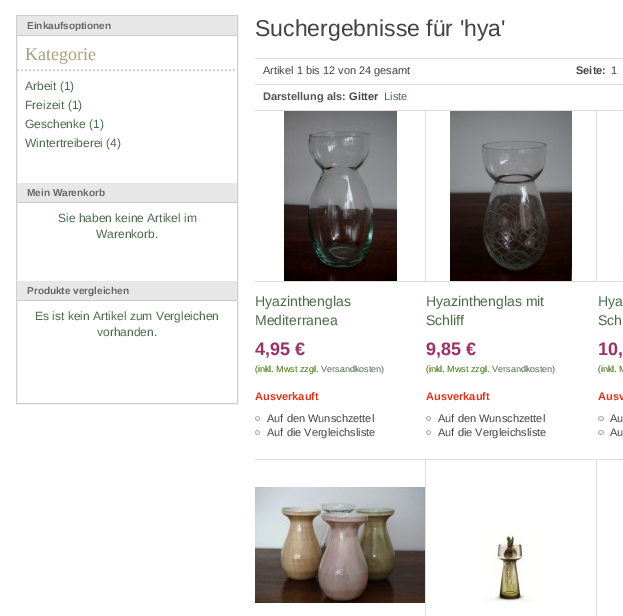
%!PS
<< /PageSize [623 616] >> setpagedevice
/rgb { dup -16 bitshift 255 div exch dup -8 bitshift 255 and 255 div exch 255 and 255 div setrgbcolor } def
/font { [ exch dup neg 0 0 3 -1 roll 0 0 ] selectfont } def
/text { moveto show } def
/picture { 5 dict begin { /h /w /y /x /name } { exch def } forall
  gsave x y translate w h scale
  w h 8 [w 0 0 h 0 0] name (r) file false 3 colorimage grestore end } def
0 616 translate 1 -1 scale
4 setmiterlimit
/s1 { /LiberationSans-Bold 10 font 16#666666 rgb } def
/s2 { /LiberationSerif-Regular 18 font 16#A9A179 rgb } def
/s3 { /LiberationSans-Regular 12 font 16#4C6A49 rgb } def
/s4 { /LiberationSans-Regular 23 font 16#444444 rgb } def
/s5 { /LiberationSans-Regular 11 font 16#444444 rgb } def
/s6 { /LiberationSans-Bold 11 font 16#444444 rgb } def
/s7 { /LiberationSans-Bold 11 font 16#555555 rgb } def
/s8 { /LiberationSans-Regular 11 font 16#4C6A49 rgb } def
/s9 { /LiberationSans-Regular 14 font 16#4C6A49 rgb } def
/s10 { /LiberationSans-Bold 18 font 16#9B3267 rgb } def
/s11 { /LiberationSans-Regular 9 font 16#396F00 rgb } def
/s12 { /LiberationSans-Regular 9 font 16#4C6A49 rgb } def
/s13 { /LiberationSans-Bold 11 font 16#D83820 rgb } def
16#FFFFFF rgb
0 0 623 616 rectfill
16#CECECE rgb
16.5 15.5 221 388 rectstroke
16#E7E7E7 rgb
17 16 220 19 rectfill
16#CCCCCC rgb
17 35 220 1 rectfill
s1
(Einkaufsoptionen) 27 29 text
16#D4D4D4 rgb
2 setlinewidth
[2 2] 0 setdash
17 70 moveto 237 70 lineto stroke
s2
(Kategorie) 25 60 text
s3
(Arbeit \(1\)) 25 90 text
(Freizeit \(1\)) 25 109 text
(Geschenke \(1\)) 25 128 text
(Wintertreiberei \(4\)) 25 147 text
16#E7E7E7 rgb
17 183 220 19 rectfill
16#CCCCCC rgb
17 202 220 1 rectfill
s1
(Mein Warenkorb) 27 196 text
s3
(Sie haben keine Artikel im) 58 222 text
(Warenkorb.) 96 238 text
16#E7E7E7 rgb
17 281 220 19 rectfill
16#CCCCCC rgb
17 300 220 1 rectfill
s1
(Produkte vergleichen) 27 294 text
s3
(Es ist kein Artikel zum Vergleichen) 35 320 text
(vorhanden.) 97 336 text
s4
(Suchergebnisse für 'hya') 255 36 text
16#DDDDDD rgb
255 58 368 1 rectfill
s5
(Artikel 1 bis 12 von 24 gesamt) 263 74 text
s6
(Seite:) 576 74 text
s5
(1) 611 74 text
16#DDDDDD rgb
255 84 368 1 rectfill
255 110 368 1 rectfill
s7
(Darstellung als:) 263 100 text
s6
(Gitter) 349 100 text
s8
(Liste) 384 100 text
16#DDDDDD rgb
425 111 1 171 rectfill
255 281 171 1 rectfill
(pic1.raw) 283 111 116 170 picture
s9
(Hyazinthenglas) 255 306 text
(Mediterranea) 255 325 text
s10
(4,95 €) 255 355 text
s11
(\(inkl. Mwst zzgl.) 255 372 text
s12
(Versandkosten\)) 321 372 text
s13
(Ausverkauft) 255 400 text
(pic2.raw) 255 416 5 5 picture
s5
(Auf den Wunschzettel) 267 422 text
(pic2.raw) 255 430 5 5 picture
(Auf die Vergleichsliste) 267 436 text
16#DDDDDD rgb
596 111 1 171 rectfill
426 281 171 1 rectfill
(pic3.raw) 450 111 124 170 picture
s9
(Hyazinthenglas mit) 426 306 text
(Schliff) 426 325 text
s10
(9,85 €) 426 355 text
s11
(\(inkl. Mwst zzgl.) 426 372 text
s12
(Versandkosten\)) 492 372 text
s13
(Ausverkauft) 426 400 text
(pic2.raw) 426 416 5 5 picture
s5
(Auf den Wunschzettel) 438 422 text
(pic2.raw) 426 430 5 5 picture
(Auf die Vergleichsliste) 438 436 text
16#DDDDDD rgb
598 281 25 1 rectfill
(pic4.raw) 622 211 1 70 picture
s9
(Hya) 598 306 text
(Sch) 598 325 text
s10
(10,) 598 355 text
s11
(\(inkl. M) 598 372 text
s13
(Ausv) 598 400 text
(pic5.raw) 598 416 6 5 picture
s5
(Au) 610 422 text
(pic5.raw) 598 430 6 5 picture
(Au) 610 436 text
16#DDDDDD rgb
255 459 342 1 rectfill
425 459 1 157 rectfill
(pic6.raw) 255 486 170 119 picture
596 459 1 157 rectfill
(pic7.raw) 483 532 55 72 picture
598 459 25 1 rectfill
showpage
